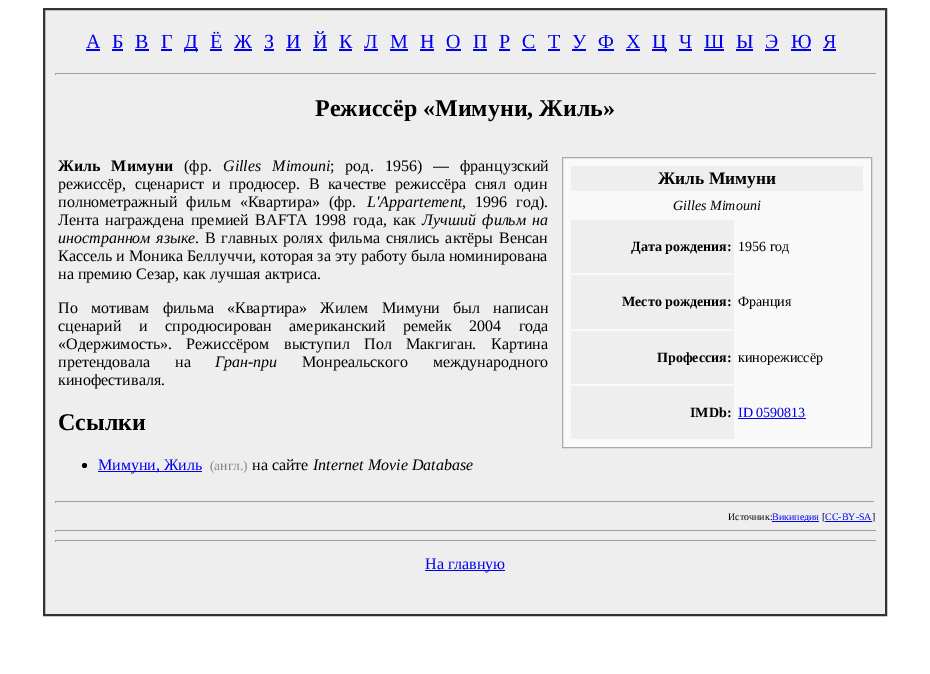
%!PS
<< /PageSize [930 674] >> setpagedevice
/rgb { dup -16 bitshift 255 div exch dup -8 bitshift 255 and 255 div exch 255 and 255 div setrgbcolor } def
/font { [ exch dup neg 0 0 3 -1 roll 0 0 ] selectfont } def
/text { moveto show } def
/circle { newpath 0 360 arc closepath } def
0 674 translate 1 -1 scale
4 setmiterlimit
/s1 { /LiberationSerif-Regular 20 font 16#0000EE rgb } def
/s2 { /LiberationSerif-Bold 24 font 16#000000 rgb } def
/s3 { /LiberationSerif-Regular 16 font 16#000000 rgb } def
/s4 { /LiberationSerif-Italic 16 font 16#000000 rgb } def
/s5 { /LiberationSerif-Bold 17.5 font 16#000000 rgb } def
/s6 { /LiberationSerif-Italic 14 font 16#000000 rgb } def
/s7 { /LiberationSerif-Bold 14 font 16#000000 rgb } def
/s8 { /LiberationSerif-Regular 14 font 16#000000 rgb } def
/s9 { /LiberationSerif-Regular 14 font 16#0000EE rgb } def
/s10 { /LiberationSerif-Regular 16 font 16#0000EE rgb } def
/s11 { /LiberationSerif-Regular 13.5 font 16#888888 rgb } def
/s12 { /LiberationSerif-Regular 10 font 16#000000 rgb } def
/s13 { /LiberationSerif-Regular 10 font 16#0000EE rgb } def
16#FFFFFF rgb
0 0 930 674 rectfill
16#EEEEEE rgb
44 9 moveto 886 9 lineto 886 615 lineto 44 615 lineto closepath gsave fill grestore
16#333333 rgb
2 setlinewidth
stroke
s1
(А) 86 48 text
86 49 14 2 rectfill
(Б) 112 48 text
112 49 11 2 rectfill
(В) 135 48 text
135 49 14 2 rectfill
(Г) 161 48 text
161 49 11 2 rectfill
184 49 14 2 rectfill
(Д) 184 48 text
(Ё) 210 48 text
210 49 12 2 rectfill
(Ж) 234 48 text
234 49 18 2 rectfill
(З) 264 48 text
264 49 10 2 rectfill
(И) 286 48 text
286 49 15 2 rectfill
(Й) 313 48 text
313 49 14 2 rectfill
(К) 339 48 text
339 49 13 2 rectfill
(Л) 364 48 text
364 49 14 2 rectfill
(М) 390 48 text
390 49 18 2 rectfill
(Н) 420 48 text
420 49 14 2 rectfill
(О) 446 48 text
446 49 15 2 rectfill
(П) 473 48 text
473 49 14 2 rectfill
(Р) 499 48 text
499 49 11 2 rectfill
(С) 522 48 text
522 49 14 2 rectfill
(Т) 548 48 text
548 49 12 2 rectfill
(У) 572 48 text
572 49 14 2 rectfill
(Ф) 598 48 text
598 49 16 2 rectfill
(Х) 626 48 text
626 49 14 2 rectfill
652 49 15 2 rectfill
(Ц) 652 48 text
(Ч) 679 48 text
679 49 13 2 rectfill
(Ш) 704 48 text
704 49 20 2 rectfill
(Ы) 736 48 text
736 49 17 2 rectfill
(Э) 765 48 text
765 49 14 2 rectfill
(Ю) 791 48 text
791 49 20 2 rectfill
(Я) 823 48 text
823 49 13 2 rectfill
16#9F9F9F rgb
55 73 822 1 rectfill
16#EEEEEE rgb
876 73 1 2 rectfill
16#9F9F9F rgb
55 73 1 2 rectfill
s2
(Режиссёр «Мимуни, Жиль») 315 116 text
/LiberationSerif-Bold 16 font
58 171 moveto 7 0 32 (Жиль Мимуни) widthshow
s3
(\(фр.) 184 171 text
/LiberationSerif-Italic 16 font
223 171 moveto 7 0 32 (Gilles Mimouni) widthshow
/LiberationSerif-Regular 16 font
330 171 moveto 7 0 32 (; род. 1956\) — французский) widthshow
58 189 moveto 4.5 0 32 (режиссёр, сценарист и продюсер. В качестве режиссёра снял один) widthshow
58 207 moveto 5 0 32 (полнометражный фильм «Квартира» \(фр.) widthshow
s4
(L'Appartement) 367 207 text
/LiberationSerif-Regular 16 font
462 207 moveto 5 0 32 (, 1996 год\).) widthshow
58 225 moveto 2.5 0 32 (Лента награждена премией BAFTA 1998 года, как) widthshow
/LiberationSerif-Italic 16 font
422 225 moveto 2.5 0 32 (Лучший фильм на) widthshow
58 243 moveto 1.75 0 32 (иностранном языке) widthshow
/LiberationSerif-Regular 16 font
195 243 moveto 1.75 0 32 (. В главных ролях фильма снялись актёры Венсан) widthshow
(Кассель и Моника Беллуччи, которая за эту работу была номинирована) 58 261 text
(на премию Сезар, как лучшая актриса.) 58 279 text
16#F9F9F9 rgb
562.5 157.5 moveto 871.5 157.5 lineto 871.5 447.5 lineto 562.5 447.5 lineto closepath gsave fill grestore
16#AAAAAA rgb
1 setlinewidth
stroke
16#EEEEEE rgb
571 166 292 25 rectfill
s5
(Жиль Мимуни) 658 184 text
s6
(Gilles Mimouni) 673 210 text
16#EEEEEE rgb
571 220 163 53 rectfill
s7
(Дата рождения:) 631 251 text
s8
(1956 год) 738 251 text
16#EEEEEE rgb
571 275 163 54 rectfill
s7
(Место рождения:) 622 306 text
s8
(Франция) 738 306 text
16#EEEEEE rgb
571 331 163 53 rectfill
s7
(Профессия:) 657 362 text
s8
(кинорежиссёр) 738 362 text
16#EEEEEE rgb
571 386 163 53 rectfill
s7
(IMDb:) 690 417 text
s9
(ID 0590813) 738 417 text
738 418 68 1 rectfill
/LiberationSerif-Regular 16 font
16#000000 rgb
58 313 moveto 9.25 0 32 (По мотивам фильма «Квартира» Жилем Мимуни был написан) widthshow
58 331 moveto 13.5 0 32 (сценарий и спродюсирован американский ремейк 2004 года) widthshow
58 349 moveto 10.5 0 32 («Одержимость». Режиссёром выступил Пол Макгиган. Картина) widthshow
58 367 moveto 21 0 32 (претендовала на) widthshow
s4
(Гран-при) 215 367 text
/LiberationSerif-Regular 16 font
302 367 moveto 21 0 32 (Монреальского международного) widthshow
(кинофестиваля.) 58 385 text
s2
(Ссылки) 58 430 text
84.5 465.5 2.5 circle fill
16#0000EE rgb
98 471 104 1 rectfill
s10
(Мимуни, Жиль) 98 470 text
s11
(\(англ.\)) 210 470 text
s3
(на сайте) 252 470 text
s4
(Internet Movie Database) 313 470 text
16#9F9F9F rgb
55 501 820 1 rectfill
16#EEEEEE rgb
874 501 1 2 rectfill
16#9F9F9F rgb
55 501 1 2 rectfill
s12
(Источник:) 728 520 text
16#0000EE rgb
772 521 47 1 rectfill
(Википедия) 772 520 text
s12
([) 822 520 text
16#0000EE rgb
825 521 47 1 rectfill
(CC-BY-SA) 825 520 text
s12
(]) 872 520 text
16#9F9F9F rgb
55 530 822 1 rectfill
16#EEEEEE rgb
876 530 1 2 rectfill
16#9F9F9F rgb
55 530 1 2 rectfill
55 540 822 1 rectfill
16#EEEEEE rgb
876 540 1 2 rectfill
16#9F9F9F rgb
55 540 1 2 rectfill
16#0000EE rgb
425 570 80 1 rectfill
s10
(На главную) 425 569 text
showpage
